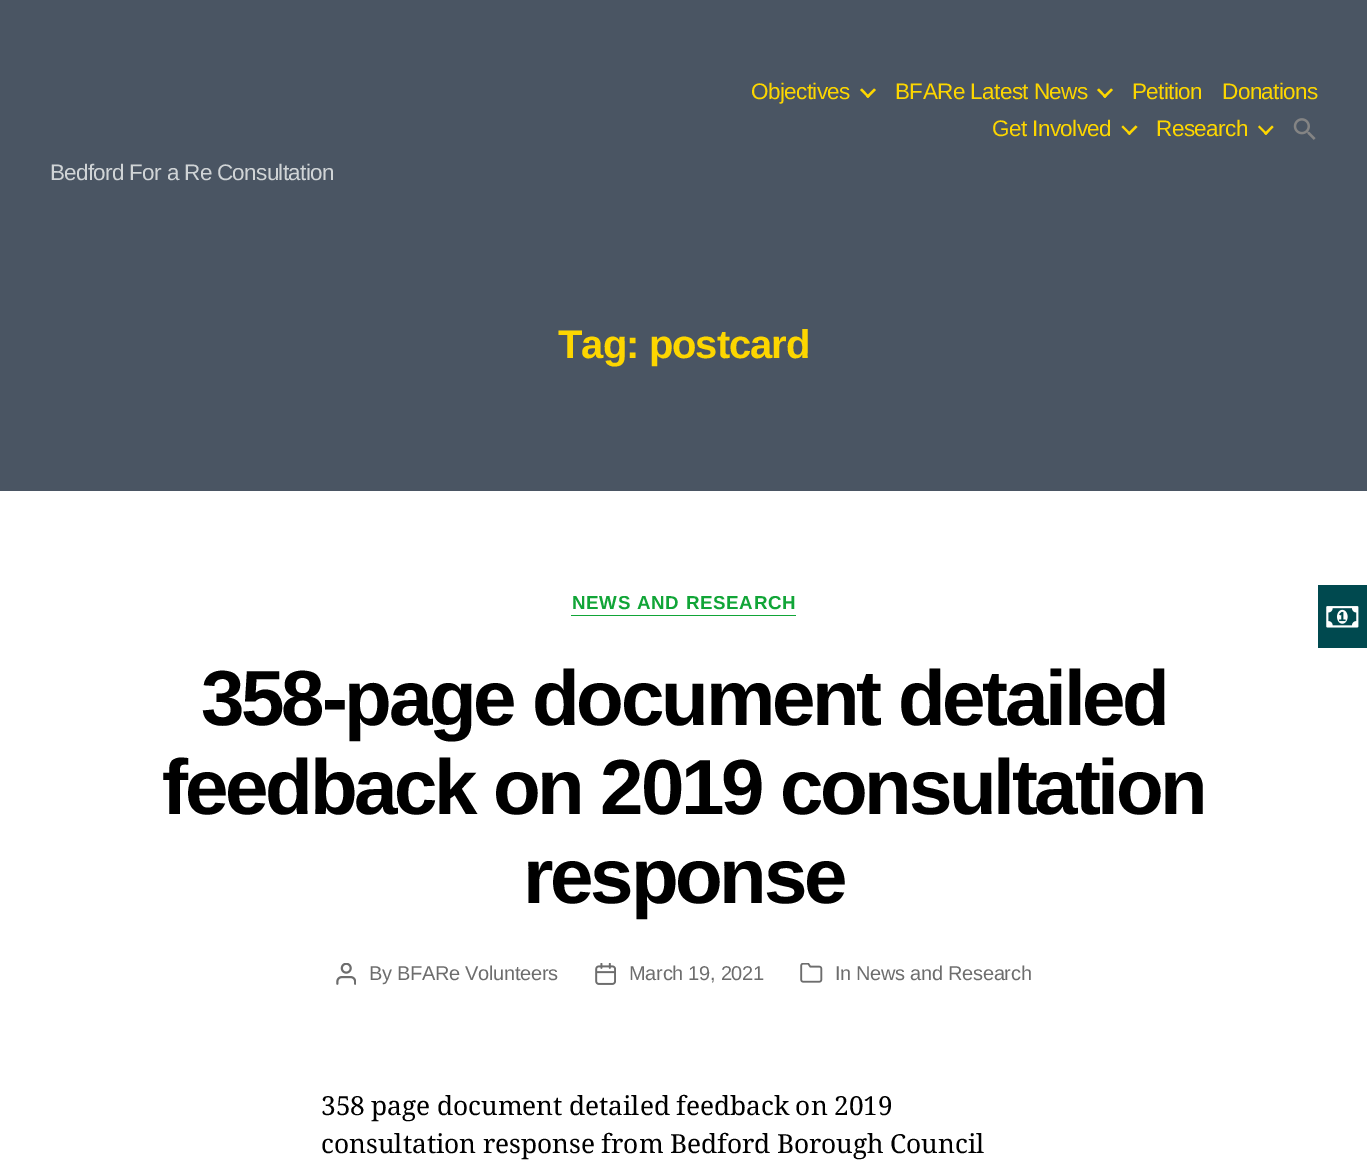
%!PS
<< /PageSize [1367 1167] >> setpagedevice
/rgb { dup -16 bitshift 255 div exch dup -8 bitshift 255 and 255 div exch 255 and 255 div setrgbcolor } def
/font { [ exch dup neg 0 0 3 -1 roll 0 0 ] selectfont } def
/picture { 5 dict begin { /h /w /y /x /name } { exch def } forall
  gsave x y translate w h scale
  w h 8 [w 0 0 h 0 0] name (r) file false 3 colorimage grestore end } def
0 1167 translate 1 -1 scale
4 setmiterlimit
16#FFFFFF rgb
0 0 1367 1167 rectfill
16#4A5563 rgb
0 0 1367 491 rectfill
/LiberationSans-Regular 22.5 font
16#FDD600 rgb
751 99 moveto -0.6 0 (Objectives) ashow
860 90 moveto 862 88.5 lineto 869.5 96.5 lineto 868 98 lineto closepath fill
866 96.5 moveto 874 88.5 lineto 876 90 lineto 868 98 lineto closepath fill
895 99 moveto -0.6 0 (BFARe Latest News) ashow
1097 90 moveto 1099 88.5 lineto 1106.5 96.5 lineto 1105 98 lineto closepath fill
1103 96.5 moveto 1111 88.5 lineto 1113 90 lineto 1105 98 lineto closepath fill
1132 99 moveto -0.6 0 (Petition) ashow
1222 99 moveto -0.6 0 (Donations) ashow
992 136 moveto -0.6 0 (Get Involved) ashow
1121.5 127 moveto 1123 125.5 lineto 1131 133.5 lineto 1129.5 135 lineto closepath fill
1127.5 133.5 moveto 1135.5 125.5 lineto 1137.5 127 lineto 1129.5 135 lineto closepath fill
1156 136 moveto -0.6 0 (Research) ashow
1258 127 moveto 1259.5 125.5 lineto 1267.5 133.5 lineto 1266 135 lineto closepath fill
1264 133.5 moveto 1272 125.5 lineto 1273.5 127 lineto 1266 135 lineto closepath fill
(pic1.raw) 1293 118 23 22 picture
16#D0D4D6 rgb
50 180 moveto -0.7 0 (Bedford For a Re Consultation) ashow
/LiberationSans-Bold 40 font
16#FDD600 rgb
558 358 moveto -1 0 (Tag: postcard) ashow
16#11A537 rgb
571 615 225 1 rectfill
/LiberationSans-Bold 18.75 font
572 609 moveto 0.7 0 (NEWS AND RESEARCH) ashow
/LiberationSans-Bold 78.1 font
16#000000 rgb
201 725 moveto -3.25 0 (358-page document detailed) ashow
162 814 moveto -3.25 0 (feedback on 2019 consultation) ashow
523 903 moveto -3.25 0 (response) ashow
(pic2.raw) 336 963 20 22 picture
/LiberationSans-Regular 20 font
16#6D6D6D rgb
369 980 moveto -0.3 0 (By BFARe Volunteers) ashow
(pic3.raw) 595 963 21 22 picture
629 980 moveto -0.3 0 (March 19, 2021) ashow
(pic4.raw) 800 963 23 20 picture
835 980 moveto -0.3 0 (In News and Research) ashow
/NotoSerif-Regular 26.25 font
16#000000 rgb
321 1115 moveto -0.5 0 32 (358 page document detailed feedback on 2019) widthshow
321 1153 moveto -0.5 0 32 (consultation response from Bedford Borough Council) widthshow
16#00494F rgb
1318 585 49 63 rectfill
(pic5.raw) 1326 606 33 22 picture
showpage
